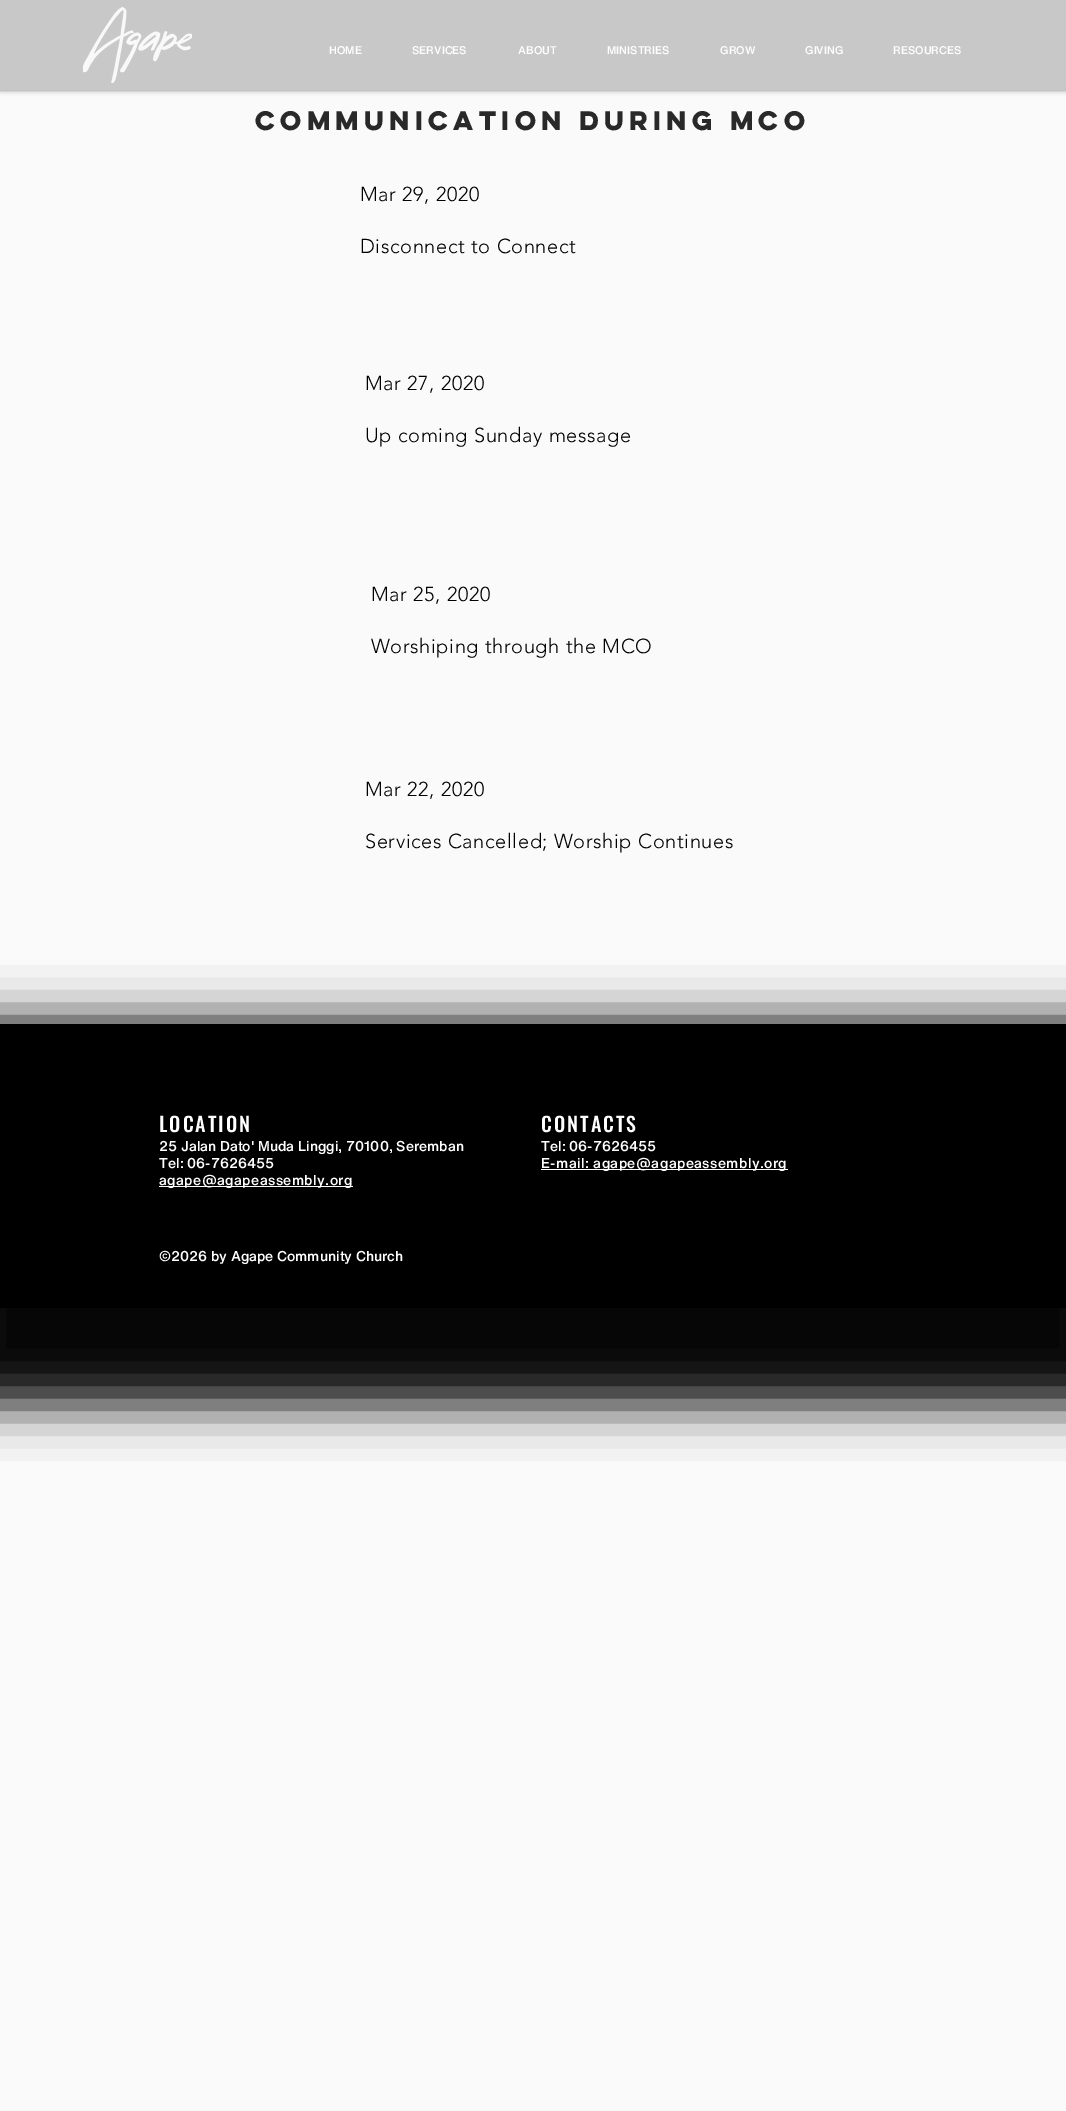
%!PS
<< /PageSize [1066 2111] /PageUsesTransparency true >> setpagedevice
/rgb { dup -16 bitshift 255 div exch dup -8 bitshift 255 and 255 div exch 255 and 255 div setrgbcolor } def
/font { [ exch dup neg 0 0 3 -1 roll 0 0 ] selectfont } def
/text { moveto show } def
/alpha { dup .setfillconstantalpha .setstrokeconstantalpha } def
/roundrect { 5 dict begin { /r /h /w /y /x } { exch def } forall
  x r add y moveto x w add y 2 copy h add r arct x w add y h add x 1 index r arct
  x y h add x y r arct x y 2 copy exch w add exch r arct closepath end } def
/shadow { 12 dict begin { /a /b /q /h /w /y /x } { exch def } forall gsave /was 0 def
  9 -2 -9 { dup b mul 4 div /e exch def 1 sub .425 mul 2.718 exch exp 1 add a .99 .min exch div /now exch def
    1 1 now sub 1 was sub div sub alpha /was now def
    w h .min e 2 mul add 0 gt { x e sub y e sub w e 2 mul add h e 2 mul add
      q e add b .6 mul add w h .min 2 div e add .min 0 .max roundrect fill } if } for grestore end } def
/picture { 5 dict begin { /h /w /y /x /name } { exch def } forall
  gsave x y translate w h scale
  w h 8 [w 0 0 h 0 0] name (r) file false 3 colorimage grestore end } def
0 .pushpdf14devicefilter
0 2111 translate 1 -1 scale
4 setmiterlimit
/s1 { /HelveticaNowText-Medium 11 font 16#FFFFFF rgb } def
/s2 { /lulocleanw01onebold-Bold 24 font 16#292929 rgb } def
/s3 { /HelveticaNowText-Medium 14 font 16#FFFFFF rgb } def
16#FAFAFA rgb
0 0 1066 2111 rectfill
16#000000 rgb
0 0 1066 90 0 2.5 0.5 shadow
16#C8C8C8 rgb
0 0 1066 90 rectfill
(pic1.raw) 83 7 109 76 picture
s1
(HOME) 329 54 text
(SERVICES) 412 54 text
(ABOUT) 518 54 text
(MINISTRIES) 607 54 text
(GROW) 720 54 text
(GIVING) 805 54 text
(RESOURCES) 893 54 text
s2
(Communication during mCO) 255 130 text
/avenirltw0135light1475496-Light 20 font
16#000000 rgb
360 201 moveto 0.6 0 (Mar 29, 2020) ashow
360 253 moveto 0.6 0 (Disconnect to Connect) ashow
365 390 moveto 0.6 0 (Mar 27, 2020) ashow
365 442 moveto 0.6 0 (Up coming Sunday message) ashow
371 601 moveto 0.6 0 (Mar 25, 2020) ashow
371 653 moveto 0.6 0 (Worshiping through the MCO) ashow
365 796 moveto 0.6 0 (Mar 22, 2020) ashow
365 848 moveto 0.6 0 (Services Cancelled; Worship Continues) ashow
-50 1021 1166 384 0 25 1 shadow
0 1024 1066 284 rectfill
/Oswald-Medium 20 font
16#FFFFFF rgb
159 1132 moveto 2 0 (LOCATION) ashow
541 1132 moveto 2 0 (CONTACTS) ashow
s3
(25 Jalan Dato' Muda Linggi, 70100, Seremban) 159 1151 text
(Tel: 06-7626455) 159 1168 text
159 1186 194 1 rectfill
159 1185 moveto 0.4 0 (agape@agapeassembly.org) ashow
(Tel: 06-7626455) 541 1151 text
541 1169 247 1 rectfill
541 1168 moveto 0.4 0 (E-mail: agape@agapeassembly.org) ashow
(©2026 by Agape Community Church) 159 1261 text
.poppdf14devicefilter showpage
